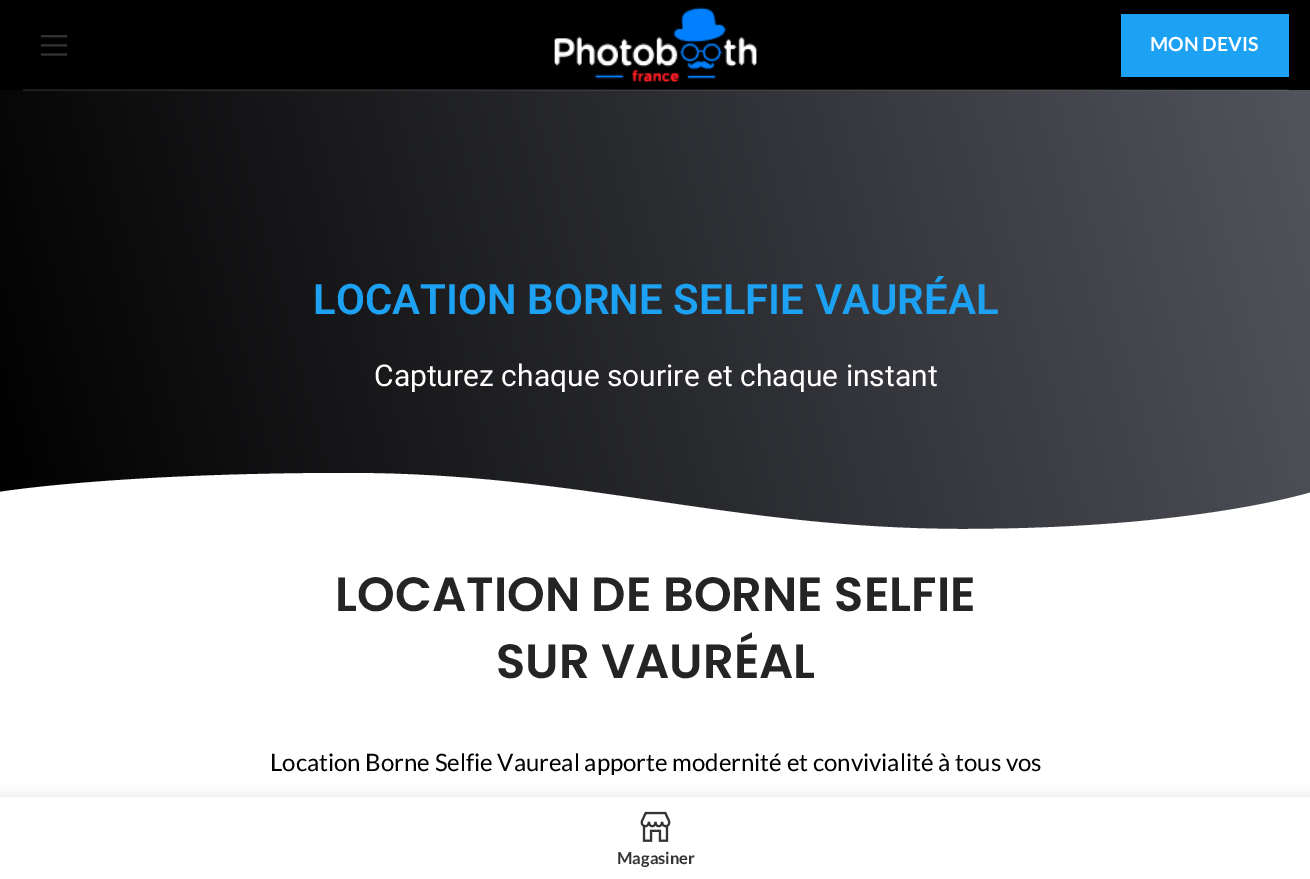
%!PS
<< /PageSize [1310 879] /PageUsesTransparency true >> setpagedevice
/rgb { dup -16 bitshift 255 div exch dup -8 bitshift 255 and 255 div exch 255 and 255 div setrgbcolor } def
/font { [ exch dup neg 0 0 3 -1 roll 0 0 ] selectfont } def
/text { moveto show } def
/alpha { dup .setfillconstantalpha .setstrokeconstantalpha } def
/roundrect { 5 dict begin { /r /h /w /y /x } { exch def } forall
  x r add y moveto x w add y 2 copy h add r arct x w add y h add x 1 index r arct
  x y h add x y r arct x y 2 copy exch w add exch r arct closepath end } def
/shadow { 12 dict begin { /a /b /q /h /w /y /x } { exch def } forall gsave /was 0 def
  9 -2 -9 { dup b mul 4 div /e exch def 1 sub .425 mul 2.718 exch exp 1 add a .99 .min exch div /now exch def
    1 1 now sub 1 was sub div sub alpha /was now def
    w h .min e 2 mul add 0 gt { x e sub y e sub w e 2 mul add h e 2 mul add
      q e add b .6 mul add w h .min 2 div e add .min 0 .max roundrect fill } if } for grestore end } def
/picture { 5 dict begin { /h /w /y /x /name } { exch def } forall
  gsave x y translate w h scale
  w h 8 [w 0 0 h 0 0] name (r) file false 3 colorimage grestore end } def
0 .pushpdf14devicefilter
0 879 translate 1 -1 scale
4 setmiterlimit
/s1 { /Lato-Bold 19.5 font 16#FFFFFF rgb } def
/s2 { /Roboto-SemiBold 42 font 16#1DA1F2 rgb } def
/s3 { /Roboto-Regular 30 font 16#FFFFFF rgb } def
/s4 { /Poppins-SemiBold 48 font 16#242424 rgb } def
/s5 { /Lato-Regular 24 font 16#000000 rgb } def
/s6 { /Lato-Bold 16.5 font 16#333333 rgb } def
16#FFFFFF rgb
0 0 1310 879 rectfill
16#000000 rgb
0 0 1310 90 rectfill
16#1A1A1A rgb
23 89 1266 1 rectfill
(pic1.raw) 40 35 28 21 picture
(pic2.raw) 554 7 203 76 picture
16#1DA1F2 rgb
1121 14 168 63 rectfill
s1
(MON DEVIS) 1150 51 text
gsave 0 90 moveto 1310 90 lineto 1310 529 lineto 0 529 lineto closepath clip newpath
<< /ShadingType 2 /ColorSpace /DeviceRGB /Coords [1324 138 -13 496] /Extend [true true] /Function << /FunctionType 2 /Domain [0 1] /C0 [0.322 0.329 0.361] /C1 [0 0 0] /N 1 >> >> shfill grestore
gsave 23 90 moveto 1289 90 lineto 1289 91 lineto 23 91 lineto closepath clip newpath
<< /ShadingType 2 /ColorSpace /DeviceRGB /Coords [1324 138 -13 496] /Extend [true true] /Function << /FunctionType 2 /Domain [0 1] /C0 [0.357 0.365 0.388] /C1 [0.102 0.102 0.102] /N 1 >> >> shfill grestore
s2
(LOCATION BORNE SELFIE VAURÉAL) 313 314 text
s3
(Capturez chaque sourire et chaque instant) 374 386 text
-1 492 moveto -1 492 115 473 348 473 curveto 581 473 730 529 963 529 curveto 1196 529 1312 492 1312 492 curveto 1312 548 lineto -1 548 lineto closepath fill
s4
(LOCATION DE BORNE SELFIE) 335 611 text
(SUR VAURÉAL) 496 678 text
s5
(Location Borne Selfie Vaureal apporte modernité et convivialité à tous vos) 270 771 text
0 797 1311 82 0 7 0.12 shadow
16#FFFFFF rgb
0 797 1310 82 rectfill
(pic3.raw) 640 811 31 31 picture
s6
(Magasiner) 617 864 text
.poppdf14devicefilter showpage
